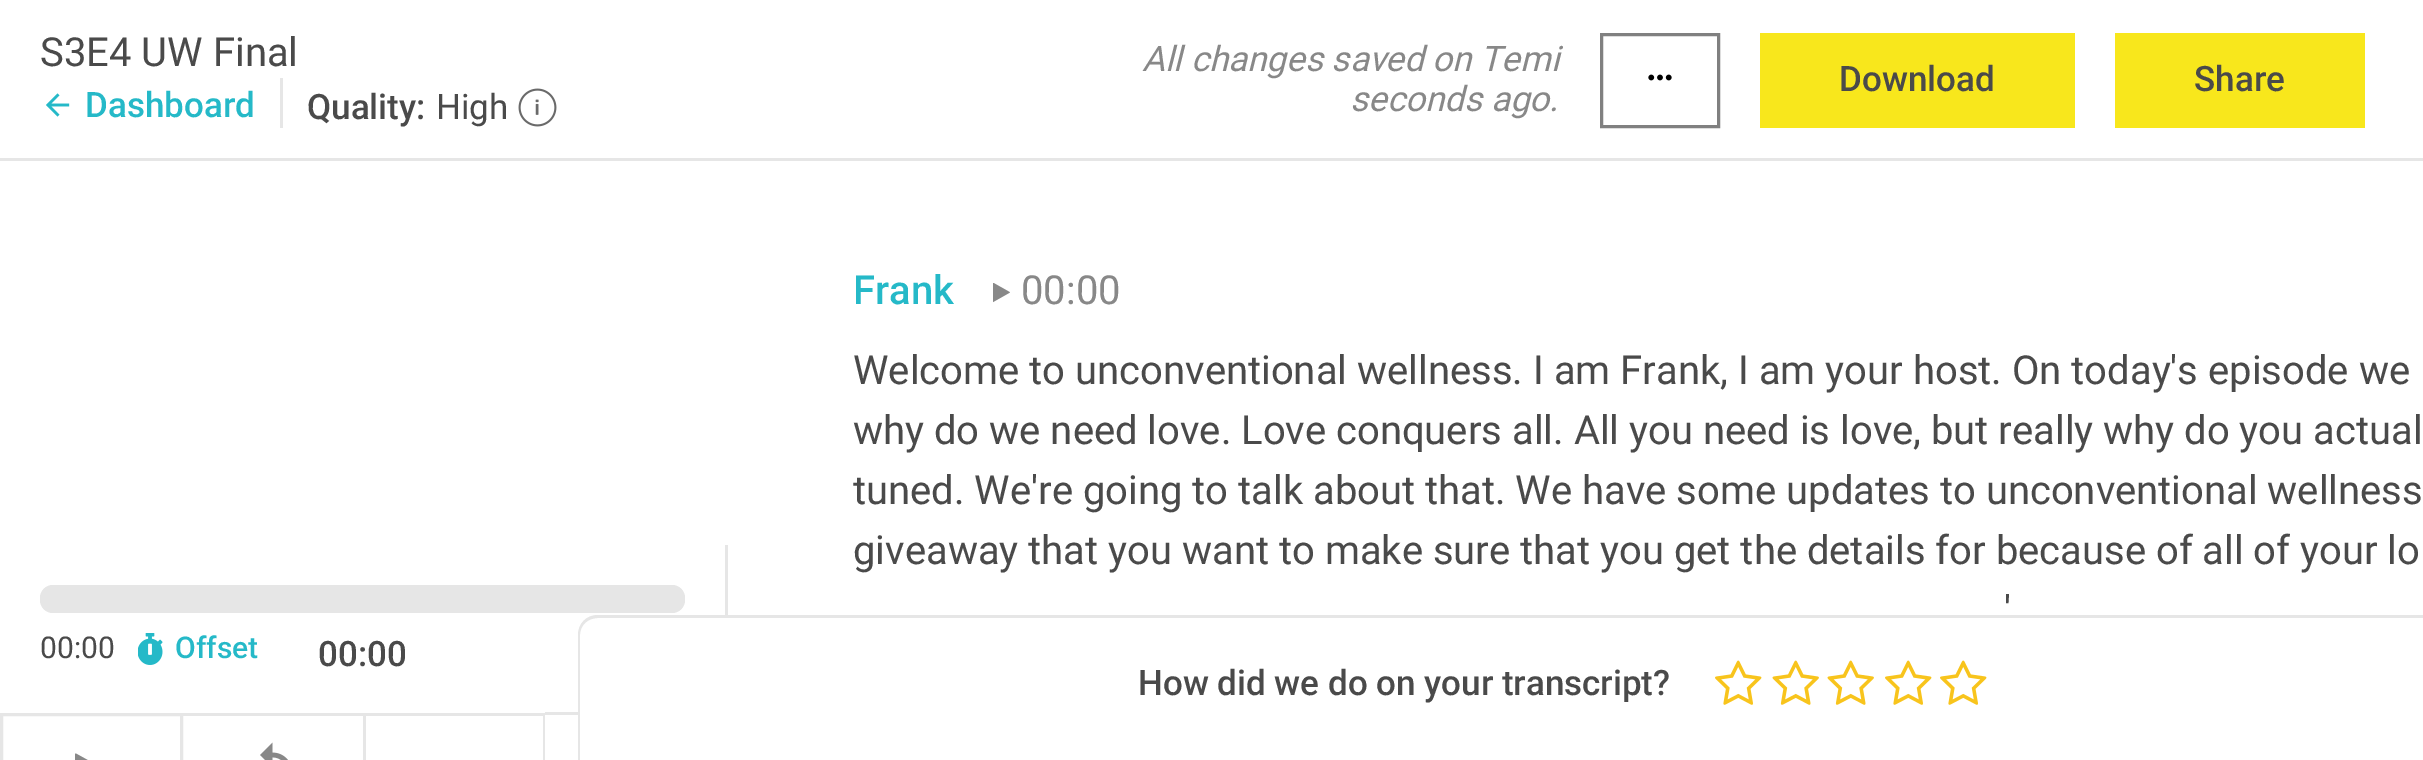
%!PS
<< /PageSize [2423 760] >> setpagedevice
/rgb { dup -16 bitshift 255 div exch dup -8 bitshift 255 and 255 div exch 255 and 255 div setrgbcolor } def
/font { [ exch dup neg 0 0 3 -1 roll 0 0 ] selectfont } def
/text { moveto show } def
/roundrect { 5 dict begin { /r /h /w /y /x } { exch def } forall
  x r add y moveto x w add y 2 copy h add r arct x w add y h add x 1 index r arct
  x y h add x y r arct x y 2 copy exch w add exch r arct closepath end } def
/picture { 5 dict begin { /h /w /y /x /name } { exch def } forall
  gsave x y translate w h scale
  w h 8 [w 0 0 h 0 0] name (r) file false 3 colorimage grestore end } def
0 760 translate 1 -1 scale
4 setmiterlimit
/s1 { /Roboto-Regular 40 font 16#4A4A4A rgb } def
/s2 { /Roboto-Medium 35 font 16#25B9C8 rgb } def
/s3 { /Roboto-Medium 35 font 16#4A4A4A rgb } def
/s4 { /Roboto-Regular 35 font 16#4A4A4A rgb } def
/s5 { /Roboto-Italic 35 font 16#888888 rgb } def
/s6 { /Roboto-Regular 30 font 16#4A4A4A rgb } def
/s7 { /Roboto-Medium 30 font 16#25B9C8 rgb } def
/s8 { /Roboto-Medium 40 font 16#25B9C8 rgb } def
/s9 { /Roboto-Regular 40 font 16#888888 rgb } def
16#FFFFFF rgb
0 0 2423 760 rectfill
16#E6E6E6 rgb
0 158 2423 3 rectfill
s1
(S3E4 UW Final) 40 66 text
(pic1.raw) 46 93 24 24 picture
s2
(Dashboard) 85 117 text
16#E6E6E6 rgb
280 78 3 50 rectfill
s3
(Quality:) 307 119 text
s4
(High) 436 119 text
(pic2.raw) 518 88 39 39 picture
s5
(All changes saved on Temi) 1142 71 text
(seconds ago.) 1350 111 text
16#808080 rgb
3 setlinewidth
1601.5 34.5 117 92 rectstroke
(pic3.raw) 1648 74 24 7 picture
16#F8E71C rgb
1760 33 315 95 rectfill
s3
(Download) 1839 91 text
16#F8E71C rgb
2115 33 250 95 rectfill
s3
(Share) 2194 91 text
16#E6E6E6 rgb
725 545 3 70 rectfill
40 585 645 28 13 roundrect fill
s6
(00:00) 40 658 text
(pic4.raw) 138 633 25 32 picture
s7
(Offset) 175 658 text
s3
(00:00) 318 666 text
16#E6E6E6 rgb
1.5 714.5 180 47 rectstroke
(pic5.raw) 75 753 13 7 picture
183 713 182 3 rectfill
363 713 3 47 rectfill
(pic6.raw) 260 742 28 18 picture
365 713 180 3 rectfill
543 713 2 47 rectfill
545 712 moveto 728 712 lineto 728 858 lineto 728 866 721 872 712 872 curveto 545 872 lineto closepath 545 715 moveto 725 715 lineto 725 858 lineto 725 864 719 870 712 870 curveto 545 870 lineto closepath eofill
s8
(Frank) 853 304 text
(pic7.raw) 993 283 17 20 picture
s9
(00:00) 1021 304 text
s1
(Welcome to unconventional wellness. I am Frank, I am your host. On today's episode we) 853 384 text
(why do we need love. Love conquers all. All you need is love, but really why do you actual) 853 444 text
(tuned. We're going to talk about that. We have some updates to unconventional wellness) 853 504 text
(giveaway that you want to make sure that you get the details for because of all of your lo) 853 564 text
(') 2004 624 text
16#FFFFFF rgb
598 618 moveto 2423 618 lineto 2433 618 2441 626 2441 636 curveto 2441 760 lineto 580 760 lineto 580 636 lineto 580 626 588 618 598 618 curveto closepath fill
16#E6E6E6 rgb
598 615 moveto 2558 615 lineto 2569 615 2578 624 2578 635 curveto 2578 760 lineto 578 760 lineto 578 635 lineto 578 624 586 615 598 615 curveto closepath 598 618 moveto 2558 618 lineto 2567 618 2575 625 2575 635 curveto 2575 760 lineto 580 760 lineto 580 635 lineto 580 625 588 618 598 618 curveto closepath eofill
s3
(How did we do on your transcript?) 1138 695 text
(pic8.raw) 1715 660 47 45 picture
(pic9.raw) 1772 660 47 45 picture
(pic9.raw) 1827 660 47 45 picture
(pic8.raw) 1885 660 47 45 picture
(pic8.raw) 1940 660 47 45 picture
showpage
